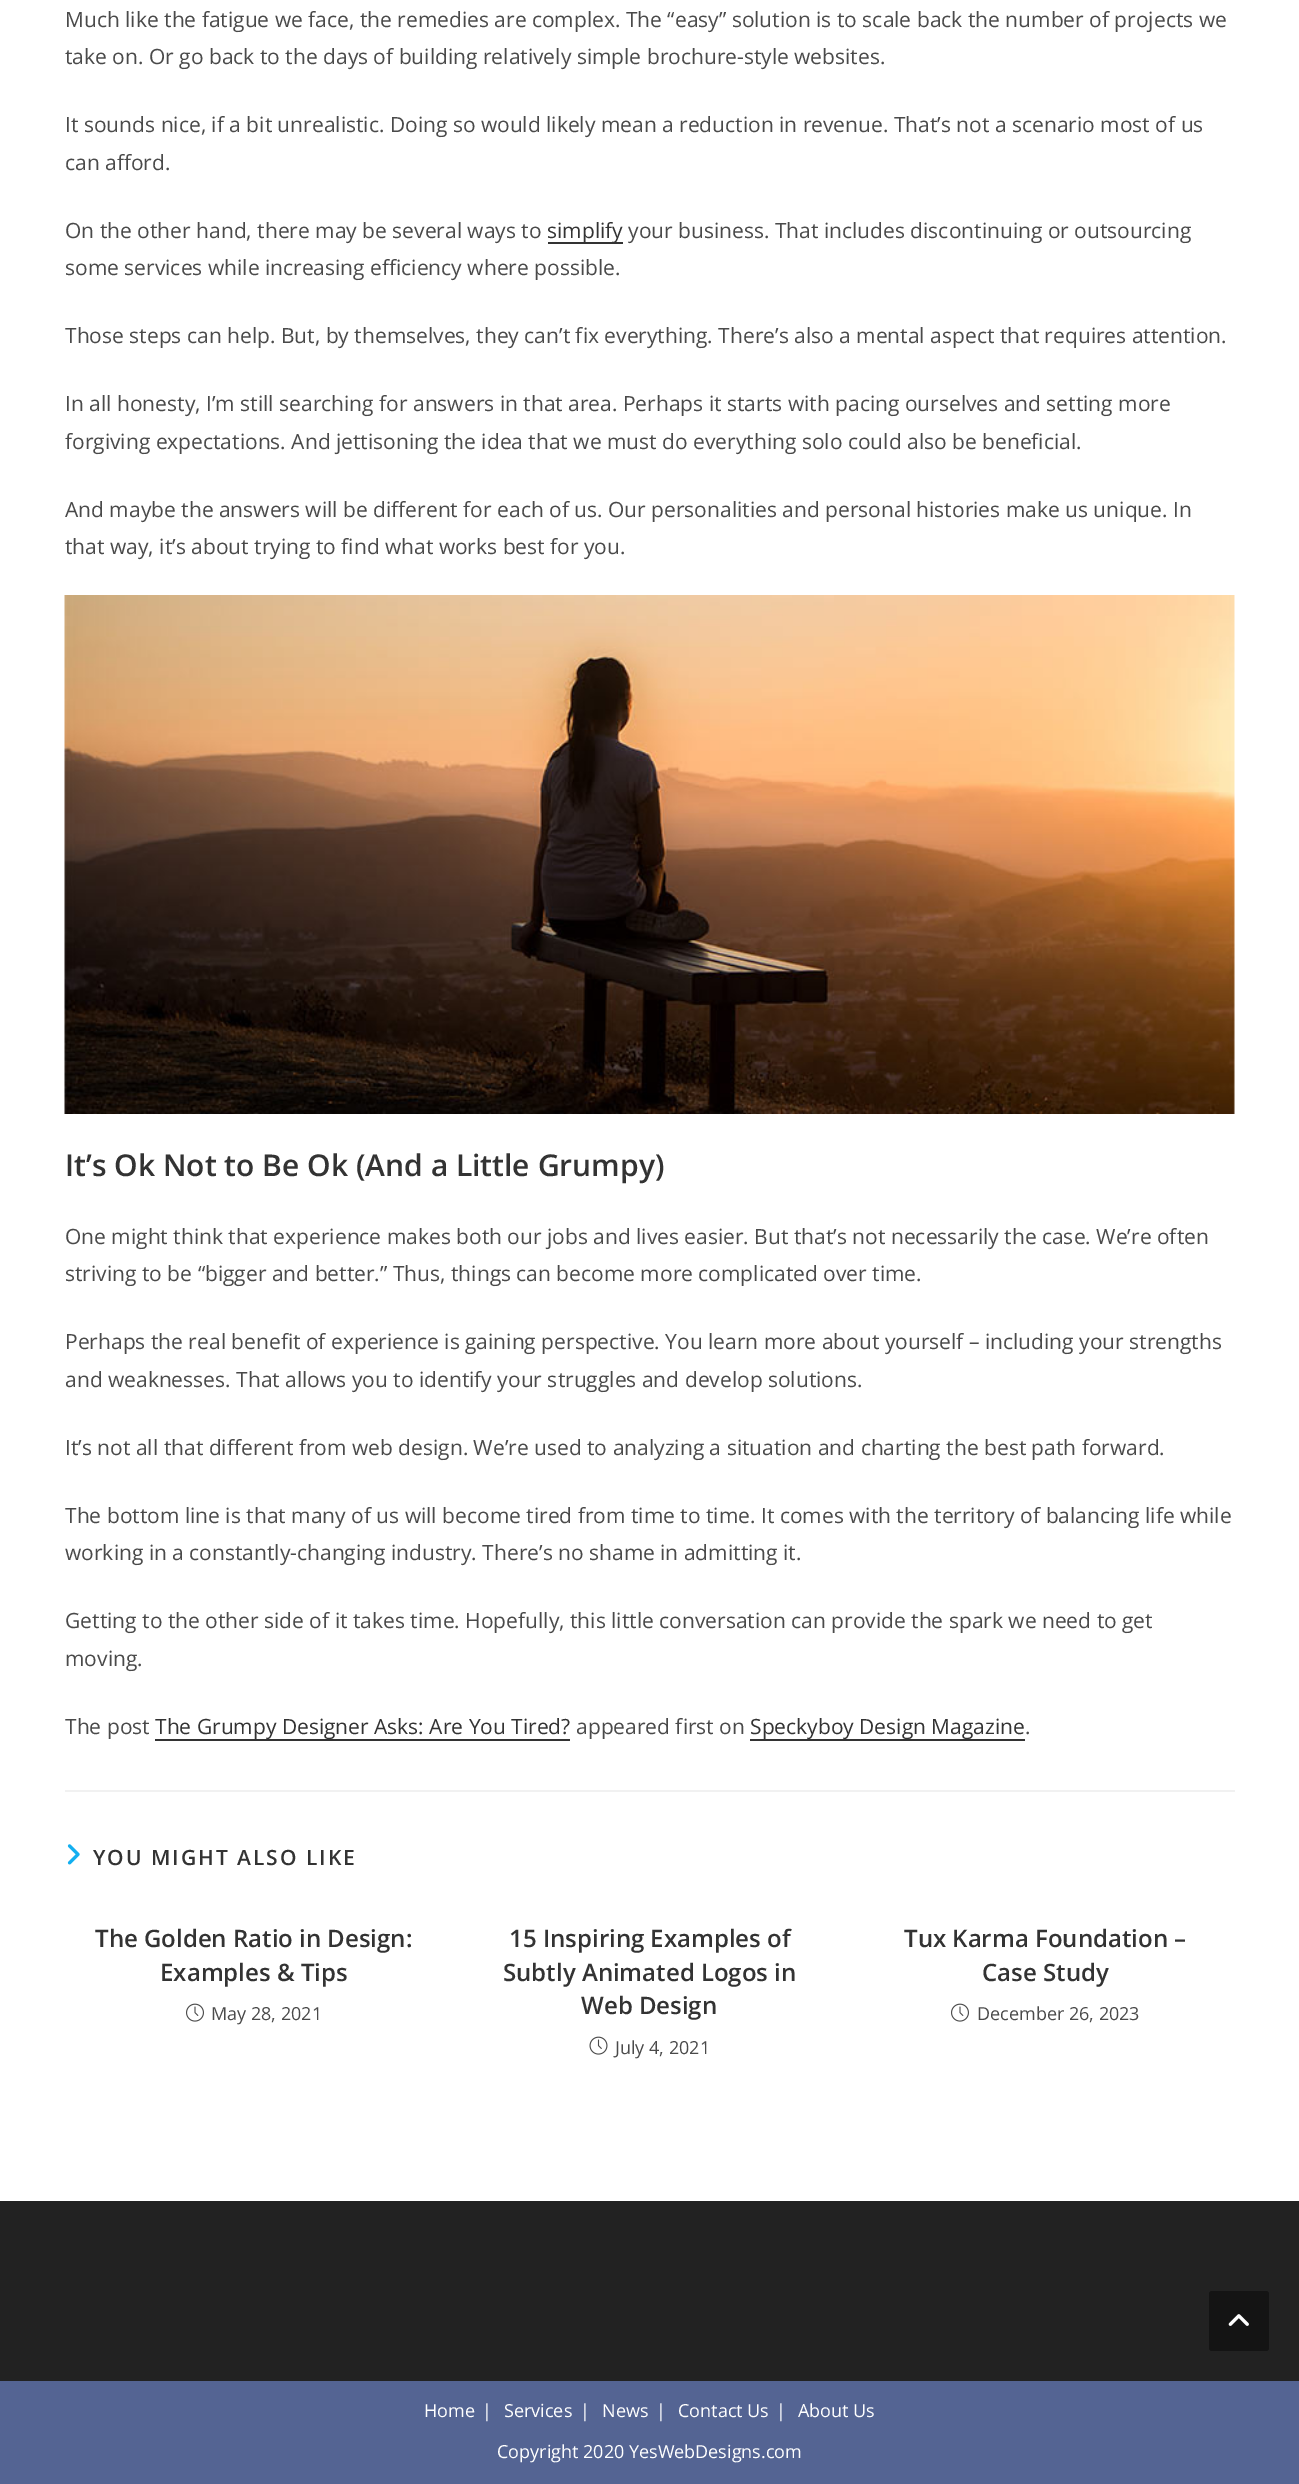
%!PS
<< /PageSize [1299 2484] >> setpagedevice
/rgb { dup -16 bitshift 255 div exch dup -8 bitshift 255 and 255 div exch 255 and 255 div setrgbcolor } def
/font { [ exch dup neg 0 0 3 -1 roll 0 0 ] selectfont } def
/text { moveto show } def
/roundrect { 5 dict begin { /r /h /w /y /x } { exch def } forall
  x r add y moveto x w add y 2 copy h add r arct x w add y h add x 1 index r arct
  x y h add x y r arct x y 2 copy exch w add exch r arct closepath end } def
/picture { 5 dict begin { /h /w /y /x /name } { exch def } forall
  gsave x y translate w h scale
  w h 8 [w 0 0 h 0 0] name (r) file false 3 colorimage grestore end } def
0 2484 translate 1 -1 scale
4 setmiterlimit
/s1 { /OpenSans-Regular 21 font 16#4A4A4A rgb } def
/s2 { /OpenSans-Regular 21 font 16#333333 rgb } def
/s3 { /OpenSans-SemiBold 30 font 16#333333 rgb } def
/s4 { /OpenSans-SemiBold 24 font 16#333333 rgb } def
/s5 { /OpenSans-Regular 18 font 16#4A4A4A rgb } def
/s6 { /OpenSans-Regular 18 font 16#FFFFFF rgb } def
16#FFFFFF rgb
0 0 1299 2484 rectfill
s1
(Much like the fatigue we face, the remedies are complex. The “easy” solution is to scale back the number of projects we) 65 27 text
(take on. Or go back to the days of building relatively simple brochure-style websites.) 65 64 text
(It sounds nice, if a bit unrealistic. Doing so would likely mean a reduction in revenue. That’s not a scenario most of us) 65 132 text
(can afford.) 65 170 text
(On the other hand, there may be several ways to) 65 238 text
16#333333 rgb
548 242 75 2 rectfill
(simplify) 547 238 text
s1
(your business. That includes discontinuing or outsourcing) 628 238 text
(some services while increasing efficiency where possible.) 65 275 text
(Those steps can help. But, by themselves, they can’t fix everything. There’s also a mental aspect that requires attention.) 65 343 text
(In all honesty, I’m still searching for answers in that area. Perhaps it starts with pacing ourselves and setting more) 65 411 text
(forgiving expectations. And jettisoning the idea that we must do everything solo could also be beneficial.) 65 449 text
(And maybe the answers will be different for each of us. Our personalities and personal histories make us unique. In) 65 517 text
(that way, it’s about trying to find what works best for you.) 65 554 text
(pic1.raw) 64 595 1171 519 picture
s3
(It’s Ok Not to Be Ok \(And a Little Grumpy\)) 65 1176 text
s1
(One might think that experience makes both our jobs and lives easier. But that’s not necessarily the case. We’re often) 65 1244 text
(striving to be “bigger and better.” Thus, things can become more complicated over time.) 65 1281 text
(Perhaps the real benefit of experience is gaining perspective. You learn more about yourself – including your strengths) 65 1349 text
(and weaknesses. That allows you to identify your struggles and develop solutions.) 65 1387 text
(It’s not all that different from web design. We’re used to analyzing a situation and charting the best path forward.) 65 1455 text
(The bottom line is that many of us will become tired from time to time. It comes with the territory of balancing life while) 65 1523 text
(working in a constantly-changing industry. There’s no shame in admitting it.) 65 1560 text
(Getting to the other side of it takes time. Hopefully, this little conversation can provide the spark we need to get) 65 1628 text
(moving.) 65 1666 text
(The post) 65 1734 text
16#333333 rgb
155 1739 415 2 rectfill
(The Grumpy Designer Asks: Are You Tired?) 155 1734 text
s1
(appeared first on) 576 1734 text
16#333333 rgb
750 1739 275 2 rectfill
(Speckyboy Design Magazine) 750 1734 text
s1
(.) 1025 1734 text
16#F1F1F1 rgb
65 1790 1170 2 rectfill
(pic2.raw) 67 1844 13 21 picture
/OpenSans-SemiBold 21 font
16#333333 rgb
93 1865 moveto 2 0 (YOU MIGHT ALSO LIKE) ashow
s4
(The Golden Ratio in Design:) 95 1947 text
(Examples & Tips) 160 1981 text
(pic3.raw) 186 2003 18 19 picture
s5
(May 28, 2021) 211 2020 text
s4
(15 Inspiring Examples of) 509 1947 text
(Subtly Animated Logos in) 503 1981 text
(Web Design) 581 2014 text
(pic4.raw) 589 2036 19 19 picture
s5
(July 4, 2021) 615 2054 text
s4
(Tux Karma Foundation –) 904 1947 text
(Case Study) 982 1981 text
(pic3.raw) 951 2003 18 19 picture
s5
(December 26, 2023) 977 2020 text
16#222222 rgb
0 2201 1299 180 rectfill
16#546493 rgb
0 2381 1299 103 rectfill
s6
(Home) 424 2417 text
(|) 482 2417 text
(Services) 504 2417 text
(|) 580 2417 text
(News) 602 2417 text
(|) 656 2417 text
(Contact Us) 678 2417 text
(|) 776 2417 text
(About Us) 798 2417 text
(Copyright 2020 YesWebDesigns.com) 497 2458 text
16#141414 rgb
1209 2291 60 60 3 roundrect fill
(pic5.raw) 1228 2314 21 12 picture
showpage
